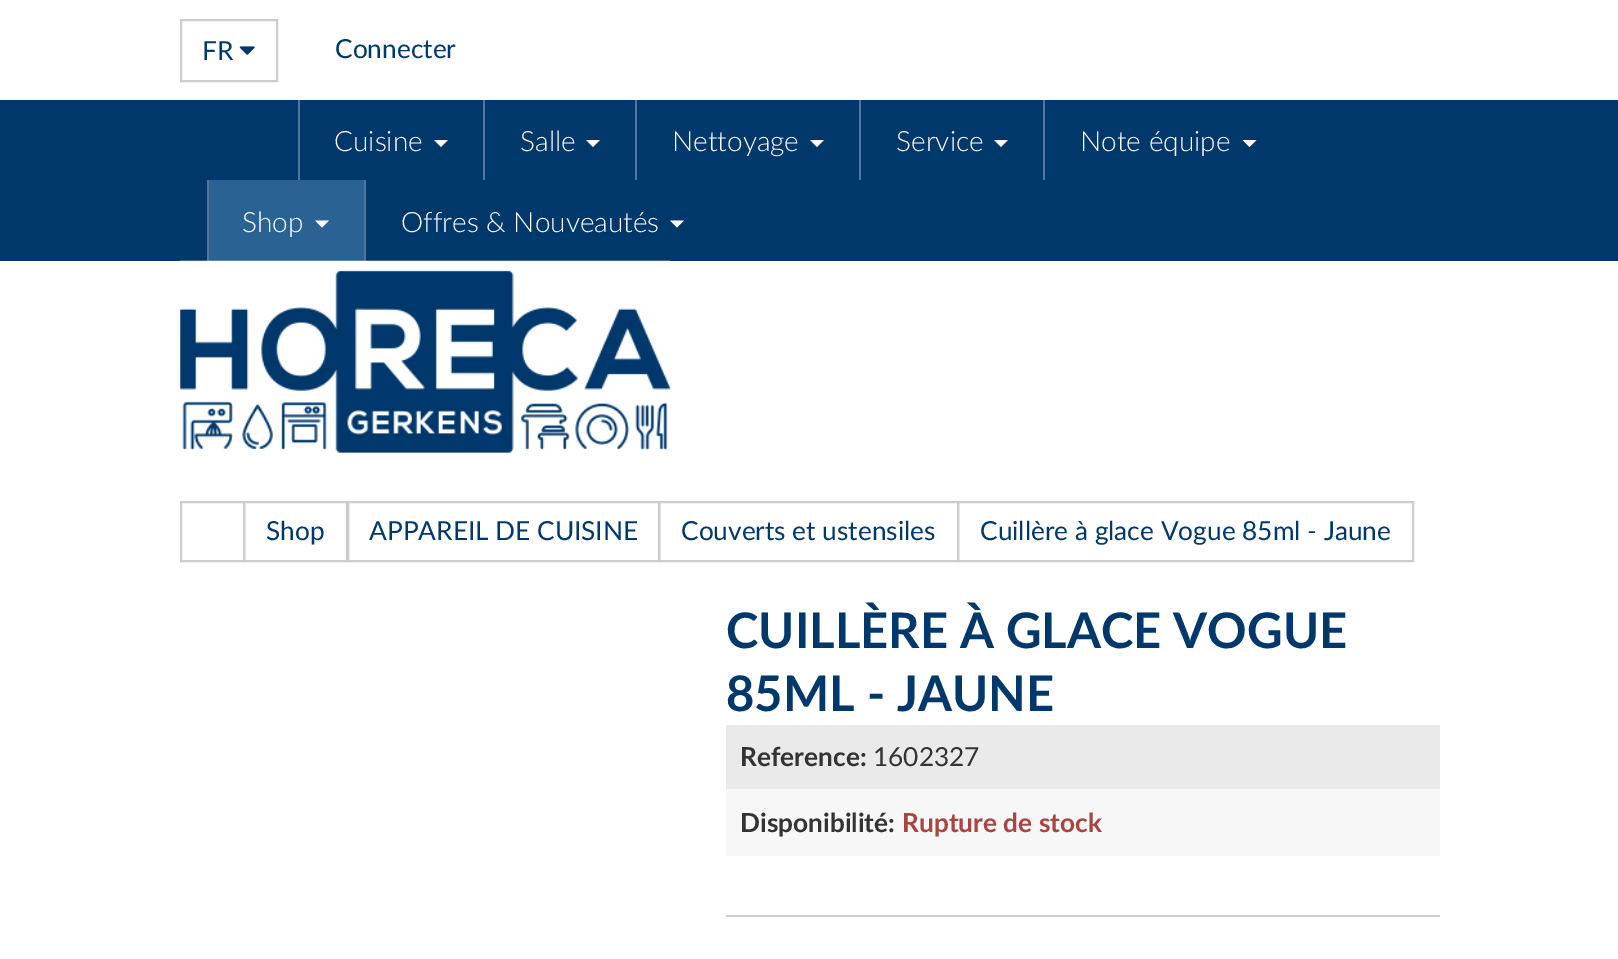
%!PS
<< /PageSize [1618 959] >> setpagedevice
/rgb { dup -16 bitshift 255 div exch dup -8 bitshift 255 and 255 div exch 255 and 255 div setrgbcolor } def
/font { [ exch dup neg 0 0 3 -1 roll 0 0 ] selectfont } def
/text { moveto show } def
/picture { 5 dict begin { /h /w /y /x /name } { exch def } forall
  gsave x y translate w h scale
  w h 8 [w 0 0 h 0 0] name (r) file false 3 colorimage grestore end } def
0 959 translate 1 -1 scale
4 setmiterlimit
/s1 { /Lato-Regular 26.25 font 16#00386C rgb } def
/s2 { /Lato-Light 28 font 16#FFFFFF rgb } def
/s3 { /Lato-Bold 49 font 16#00386C rgb } def
/s4 { /Lato-Bold 26.25 font 16#333333 rgb } def
/s5 { /Lato-Regular 26.25 font 16#333333 rgb } def
/s6 { /Lato-Bold 26.25 font 16#A94442 rgb } def
16#FFFFFF rgb
0 0 1618 959 rectfill
16#CCCCCC rgb
2 setlinewidth
181 20 96 61 rectstroke
s1
(FR) 202 60 text
(pic1.raw) 239 46 16 9 picture
(Connecter) 335 58 text
0 100 1618 161 rectfill
16#517698 rgb
298 100 2 80 rectfill
s2
(Cuisine) 334 151 text
434 140 moveto 448 140 lineto 441 147 lineto closepath fill
16#517698 rgb
483 100 2 80 rectfill
s2
(Salle) 520 151 text
586 140 moveto 600 140 lineto 593 147 lineto closepath fill
16#517698 rgb
635 100 2 80 rectfill
s2
(Nettoyage) 672 151 text
810 140 moveto 824 140 lineto 817 147 lineto closepath fill
16#517698 rgb
859 100 2 80 rectfill
s2
(Service) 896 151 text
994 140 moveto 1008 140 lineto 1001 147 lineto closepath fill
16#517698 rgb
1043 100 2 80 rectfill
s2
(Note équipe) 1080 151 text
1242.5 140 moveto 1256.5 140 lineto 1249.5 147 lineto closepath fill
16#2B6294 rgb
209 180 155 81 rectfill
16#517698 rgb
207 180 2 81 rectfill
s2
(Shop) 242 232 text
315 220.5 moveto 329 220.5 lineto 322 227.5 lineto closepath fill
16#517698 rgb
364 180 2 81 rectfill
s2
(Offres & Nouveautés) 401 232 text
670 220.5 moveto 684 220.5 lineto 677 227.5 lineto closepath fill
(pic2.raw) 180 260 491 193 picture
16#CCCCCC rgb
181 502 63 59 rectstroke
244 502 103 59 rectstroke
s1
(Shop) 266 540 text
16#CCCCCC rgb
348 502 311 59 rectstroke
s1
(APPAREIL DE CUISINE) 369 540 text
16#CCCCCC rgb
659 502 299 59 rectstroke
s1
(Couverts et ustensiles) 681 540 text
16#CCCCCC rgb
958 502 455 59 rectstroke
s1
(Cuillère à glace Vogue 85ml - Jaune) 980 540 text
s3
(CUILLÈRE À GLACE VOGUE) 726 648 text
(85ML - JAUNE) 726 711 text
16#EAEAEA rgb
726 725 714 64 rectfill
s4
(Reference:) 740 766 text
s5
(1602327) 873 766 text
16#F7F7F7 rgb
726 789 714 67 rectfill
s4
(Disponibilité:) 740 832 text
s6
(Rupture de stock) 902 832 text
16#CCCCCC rgb
726 915 714 2 rectfill
showpage
